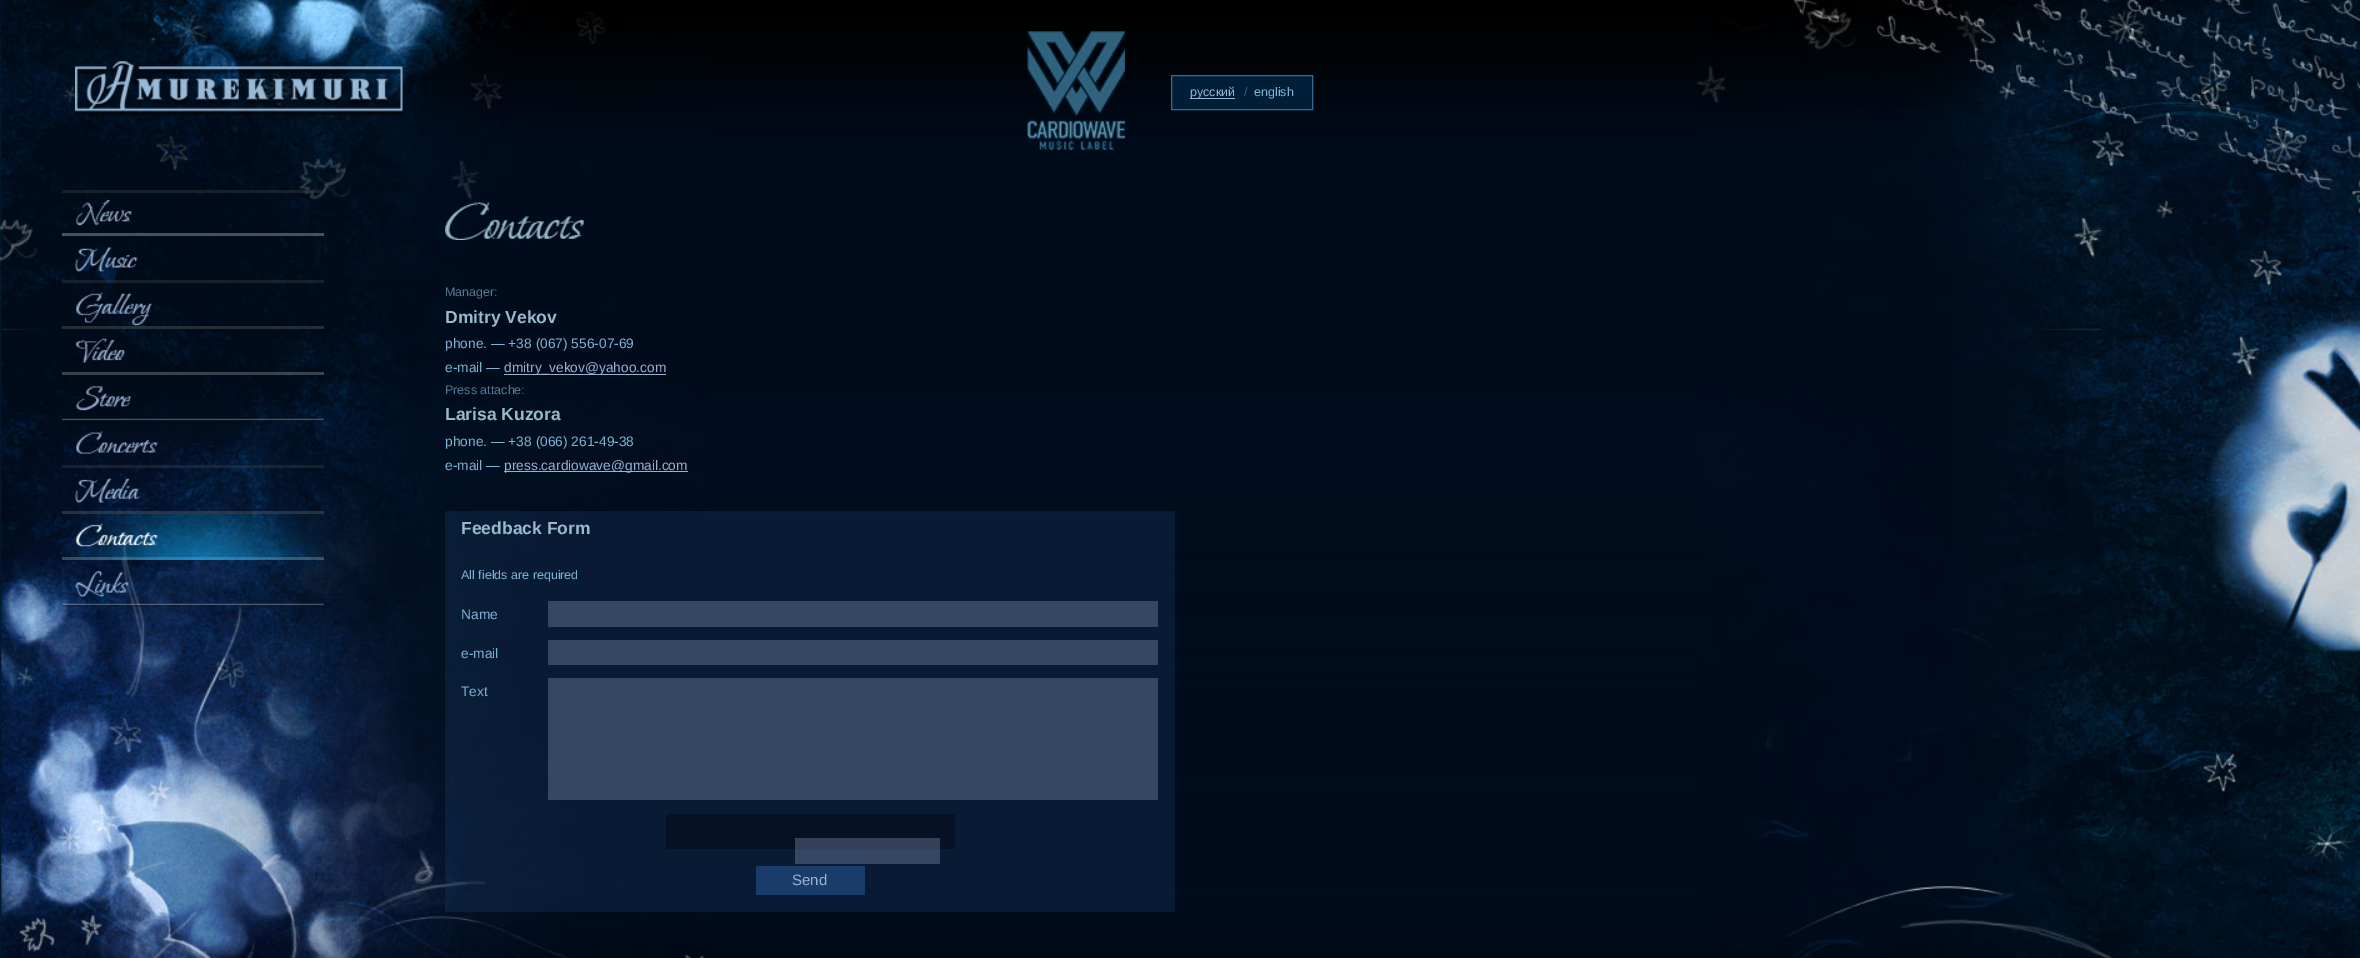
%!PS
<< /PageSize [2360 958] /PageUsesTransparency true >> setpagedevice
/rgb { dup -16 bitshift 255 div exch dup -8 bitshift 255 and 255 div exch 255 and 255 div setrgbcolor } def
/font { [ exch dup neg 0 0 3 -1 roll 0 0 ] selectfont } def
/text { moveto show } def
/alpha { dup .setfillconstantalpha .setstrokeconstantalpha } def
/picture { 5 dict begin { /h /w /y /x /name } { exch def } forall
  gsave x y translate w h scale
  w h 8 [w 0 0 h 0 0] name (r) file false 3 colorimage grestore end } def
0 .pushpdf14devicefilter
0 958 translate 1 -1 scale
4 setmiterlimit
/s1 { /LiberationSans-Regular 12.5 font 16#9AB1D2 rgb } def
/s2 { /LiberationSans-Regular 12.5 font 16#315C88 rgb } def
/s3 { /LiberationSans-Regular 12.5 font 16#7EB2D3 rgb } def
/s4 { /LiberationSans-Regular 12.5 font 16#527890 rgb } def
/s5 { /LiberationSans-Bold 17.5 font 16#99BACD rgb } def
/s6 { /LiberationSans-Regular 13.75 font 16#7EB2D3 rgb } def
/s7 { /LiberationSans-Regular 13.75 font 16#9AB1D2 rgb } def
/s8 { /LiberationSans-Regular 15 font 16#9AB1D2 rgb } def
16#FFFFFF rgb
0 0 2360 958 rectfill
(pic1.raw) 710 0 988 958 picture
(pic2.raw) 0 0 710 958 picture
(pic3.raw) 1697 0 663 958 picture
(pic4.raw) 75 61 328 54 picture
(pic5.raw) 1027 31 98 119 picture
16#001E38 rgb
1171.5 75.5 moveto 1312.5 75.5 lineto 1312.5 109.5 lineto 1171.5 109.5 lineto closepath gsave fill grestore
16#346D96 rgb
stroke
16#9AB1D2 rgb
1190 98 45 1 rectfill
s1
(русский) 1190 96 text
s2
(/) 1244 96 text
s3
(english) 1254 96 text
0.37 alpha
16#414141 rgb
62 190 262 3 rectfill
0.31 alpha
16#EBEBEB rgb
62 233 262 3 rectfill
1 alpha
(pic6.raw) 76 200 56 26 picture
0.37 alpha
16#414141 rgb
62 280 262 3 rectfill
1 alpha
(pic7.raw) 75 247 63 25 picture
0.35 alpha
16#6D6D6D rgb
62 326 262 3 rectfill
1 alpha
(pic8.raw) 76 292 76 34 picture
0.33 alpha
16#AFAFAF rgb
62 372 262 3 rectfill
1 alpha
(pic9.raw) 75 338 51 25 picture
(pic10.raw) 62 418 262 4 picture
(pic11.raw) 76 386 56 25 picture
0.37 alpha
16#414141 rgb
62 465 262 3 rectfill
1 alpha
(pic12.raw) 76 431 82 23 picture
0.35 alpha
16#6D6D6D rgb
62 511 262 3 rectfill
1 alpha
(pic13.raw) 75 478 66 25 picture
0.33 alpha
16#AFAFAF rgb
62 557 262 3 rectfill
1 alpha
(pic14.raw) 63 513 261 47 picture
(pic15.raw) 76 523 82 24 picture
(pic16.raw) 62 603 262 4 picture
(pic17.raw) 75 571 54 26 picture
(pic18.raw) 445 202 139 38 picture
s4
(Manager:) 445 296 text
s5
(Dmitry Vekov) 445 323 text
s6
(phone. — +38 \(067\) 556-07-69) 445 348 text
(e-mail —) 445 372 text
16#9AB1D2 rgb
504 374 162 1 rectfill
(dmitry_vekov@yahoo.com) 504 372 text
s4
(Press аttache:) 445 394 text
s5
(Larisa Kuzora) 445 420 text
s6
(phone. — +38 \(066\) 261-49-38) 445 446 text
(e-mail —) 445 470 text
16#9AB1D2 rgb
504 471 184 1 rectfill
(press.cardiowave@gmail.com) 504 470 text
0.3 alpha
16#1A3C6A rgb
445 511 730 401 rectfill
1 alpha
s5
(Feedback Form) 461 534 text
s3
(All fields are required) 461 579 text
s6
(Name) 461 619 text
16#344763 rgb
548 601 610 26 rectfill
s6
(e-mail) 461 658 text
16#344763 rgb
548 640 610 25 rectfill
s6
(Text) 461 696 text
16#344763 rgb
548 678 610 122 rectfill
16#061224 rgb
666 814 289 35 rectfill
0.3 alpha
16#9CB0D1 rgb
795 838 145 26 rectfill
1 alpha
16#1A3C6B rgb
756 866 109 29 rectfill
s8
(Send) 792 885 text
.poppdf14devicefilter showpage
